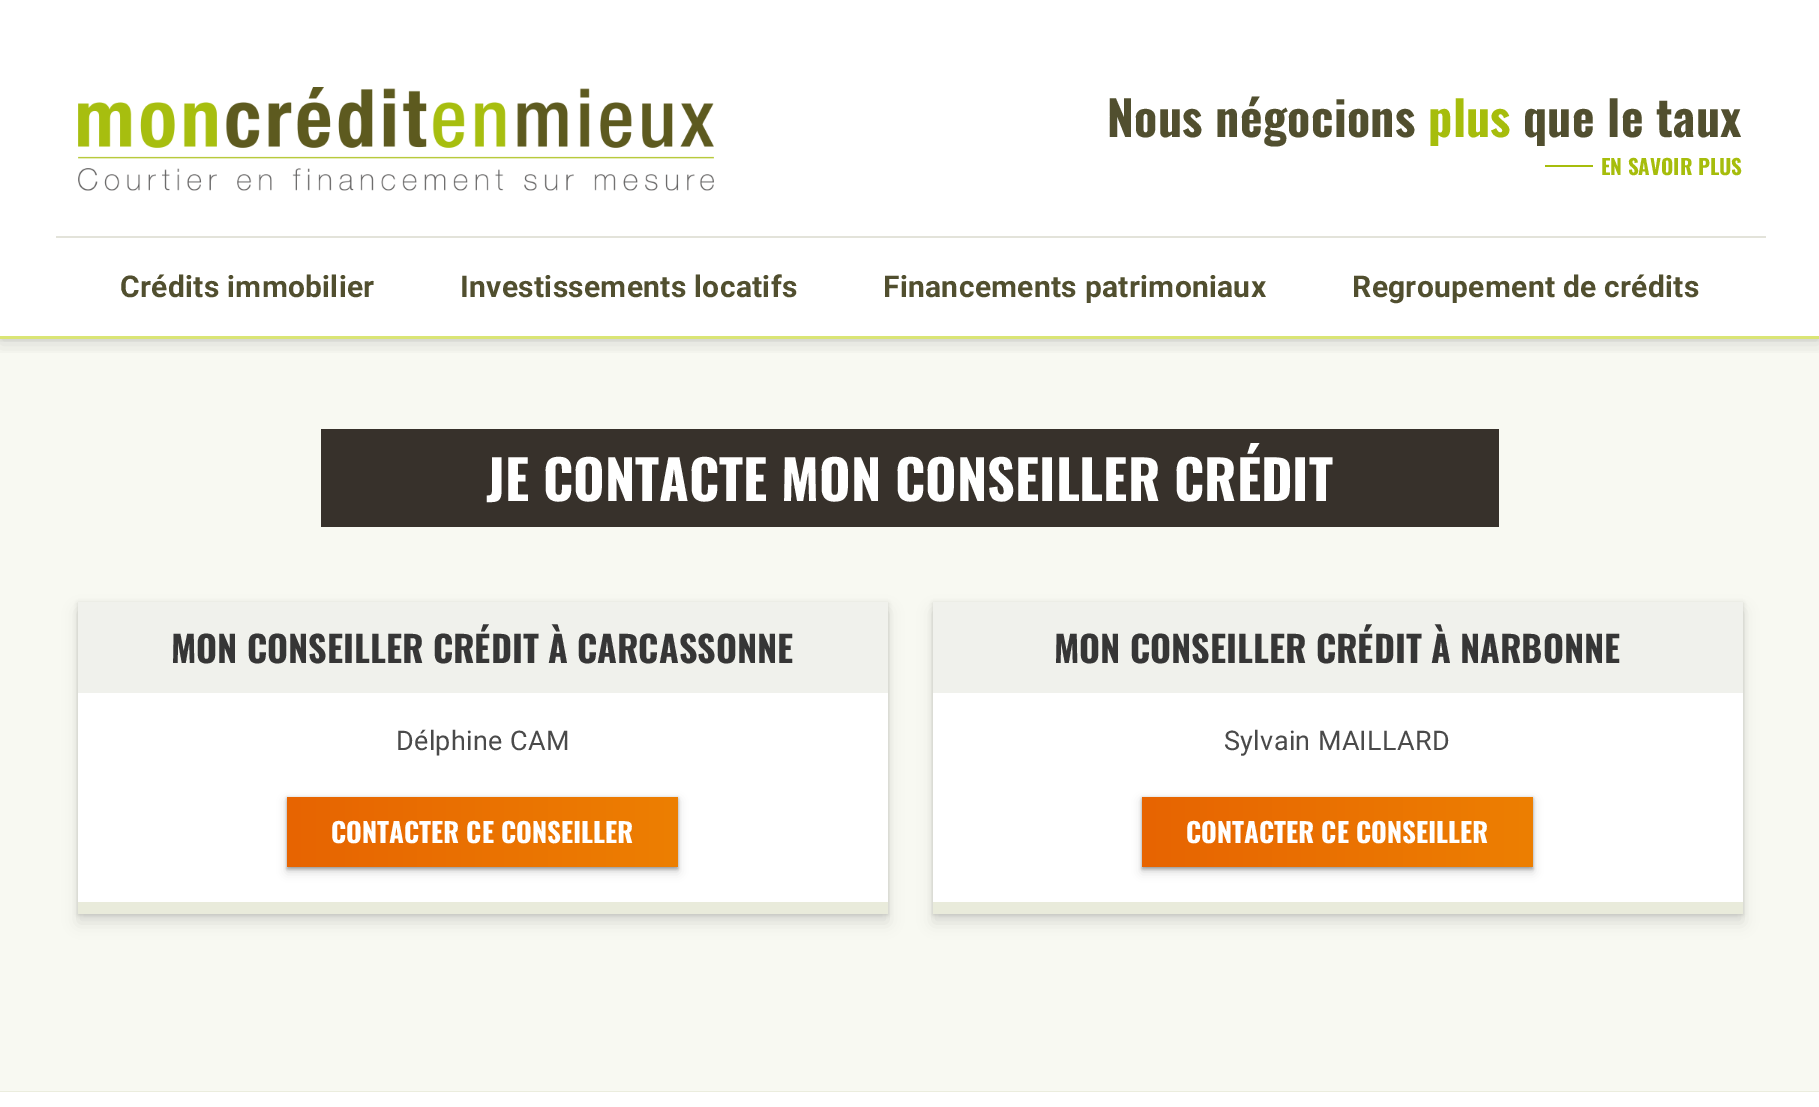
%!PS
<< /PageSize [1819 1107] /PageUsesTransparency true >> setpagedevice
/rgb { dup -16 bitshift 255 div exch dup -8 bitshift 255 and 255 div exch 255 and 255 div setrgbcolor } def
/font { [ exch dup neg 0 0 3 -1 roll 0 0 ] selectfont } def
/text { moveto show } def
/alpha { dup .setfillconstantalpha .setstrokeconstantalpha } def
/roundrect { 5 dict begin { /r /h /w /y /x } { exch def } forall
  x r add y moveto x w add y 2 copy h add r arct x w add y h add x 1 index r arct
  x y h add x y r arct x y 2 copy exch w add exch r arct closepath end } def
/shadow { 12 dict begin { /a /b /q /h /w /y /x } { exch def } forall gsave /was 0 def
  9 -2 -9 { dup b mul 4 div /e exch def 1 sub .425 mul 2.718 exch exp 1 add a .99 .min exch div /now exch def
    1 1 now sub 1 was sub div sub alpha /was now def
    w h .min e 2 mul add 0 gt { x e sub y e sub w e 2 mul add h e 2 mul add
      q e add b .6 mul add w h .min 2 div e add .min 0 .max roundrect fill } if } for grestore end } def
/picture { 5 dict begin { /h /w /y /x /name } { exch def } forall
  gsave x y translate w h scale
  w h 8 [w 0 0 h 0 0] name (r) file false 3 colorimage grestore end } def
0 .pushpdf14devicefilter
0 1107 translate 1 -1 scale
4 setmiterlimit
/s1 { /Oswald-Bold 21 font 16#A6BD0C rgb } def
/s2 { /Oswald-Bold 54 font 16#FFFFFF rgb } def
/s3 { /Oswald-Bold 36 font 16#363636 rgb } def
/s4 { /Oswald-Bold 27 font 16#FFFFFF rgb } def
16#FFFFFF rgb
0 0 1819 1107 rectfill
16#F8F9F2 rgb
0 339 1819 752 rectfill
gsave
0 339 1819 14 rectclip
16#000000 rgb
0 5 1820 339 0 9 0.12 shadow
grestore
gsave
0 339 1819 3 rectclip
16#000000 rgb
0 2 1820 339 0 2 0.06 shadow
grestore
16#DAE575 rgb
0 336 1819 3 rectfill
(pic1.raw) 78 87 636 104 picture
/Oswald-Bold 48 font
16#514F2F rgb
1107 137 moveto 0.3 0 (Nous négocions) ashow
16#A6BD0C rgb
1428 137 moveto 0.3 0 (plus) ashow
16#514F2F rgb
1523 137 moveto 0.3 0 (que le taux) ashow
16#A6BD0C rgb
1545 165 48 2 rectfill
s1
(EN SAVOIR PLUS) 1601 175 text
16#E3E3DA rgb
56 236 1710 2 rectfill
/Roboto-Bold 30 font
16#514F2F rgb
120 297 moveto 0.3 0 (Crédits immobilier) ashow
460 297 moveto 0.3 0 (Investissements locatifs) ashow
883 297 moveto 0.3 0 (Financements patrimoniaux) ashow
1352 297 moveto 0.3 0 (Regroupement de crédits) ashow
16#EBEDDE rgb
0 1091 1819 1 rectfill
16#37312B rgb
321 429 1178 98 rectfill
s2
(JE CONTACTE MON CONSEILLER CRÉDIT) 486 501 text
16#000000 rgb
78 611 810 312 0 7.5 0.11 shadow
78 603 810 312 0 2 0.08 shadow
78 603 810 312 0 2 0.06 shadow
16#FFFFFF rgb
78 693 810 209 rectfill
16#E9EBDB rgb
78 902 810 12 rectfill
16#F0F1EC rgb
78 602 810 91 rectfill
s3
(MON CONSEILLER CRÉDIT À CARCASSONNE) 171 663 text
/Roboto-Regular 27 font
16#4A4A4A rgb
396 750 moveto 0.3 0 (Délphine CAM) ashow
16#000000 rgb
287 801 391 71 0 5 0.15 shadow
287 798 391 71 0 1.5 0.28 shadow
gsave 287 797 moveto 678 797 lineto 678 867 lineto 287 867 lineto closepath clip newpath
<< /ShadingType 2 /ColorSpace /DeviceRGB /Coords [287 832 678 832] /Extend [true true] /Function << /FunctionType 2 /Domain [0 1] /C0 [0.906 0.392 0.004] /C1 [0.929 0.498 0.004] /N 1 >> >> shfill grestore
s4
(CONTACTER CE CONSEILLER) 331 843 text
16#000000 rgb
933 611 810 312 0 7.5 0.11 shadow
933 603 810 312 0 2 0.08 shadow
933 603 810 312 0 2 0.06 shadow
16#FFFFFF rgb
933 693 810 209 rectfill
16#E9EBDB rgb
933 902 810 12 rectfill
16#F0F1EC rgb
933 602 810 91 rectfill
s3
(MON CONSEILLER CRÉDIT À NARBONNE) 1054 663 text
/Roboto-Regular 27 font
16#4A4A4A rgb
1224 750 moveto 0.3 0 (Sylvain MAILLARD) ashow
16#000000 rgb
1142 801 391 71 0 5 0.15 shadow
1142 798 391 71 0 1.5 0.28 shadow
gsave 1142 797 moveto 1533 797 lineto 1533 867 lineto 1142 867 lineto closepath clip newpath
<< /ShadingType 2 /ColorSpace /DeviceRGB /Coords [1142 832 1533 832] /Extend [true true] /Function << /FunctionType 2 /Domain [0 1] /C0 [0.906 0.392 0.004] /C1 [0.929 0.498 0.004] /N 1 >> >> shfill grestore
s4
(CONTACTER CE CONSEILLER) 1186 843 text
.poppdf14devicefilter showpage
